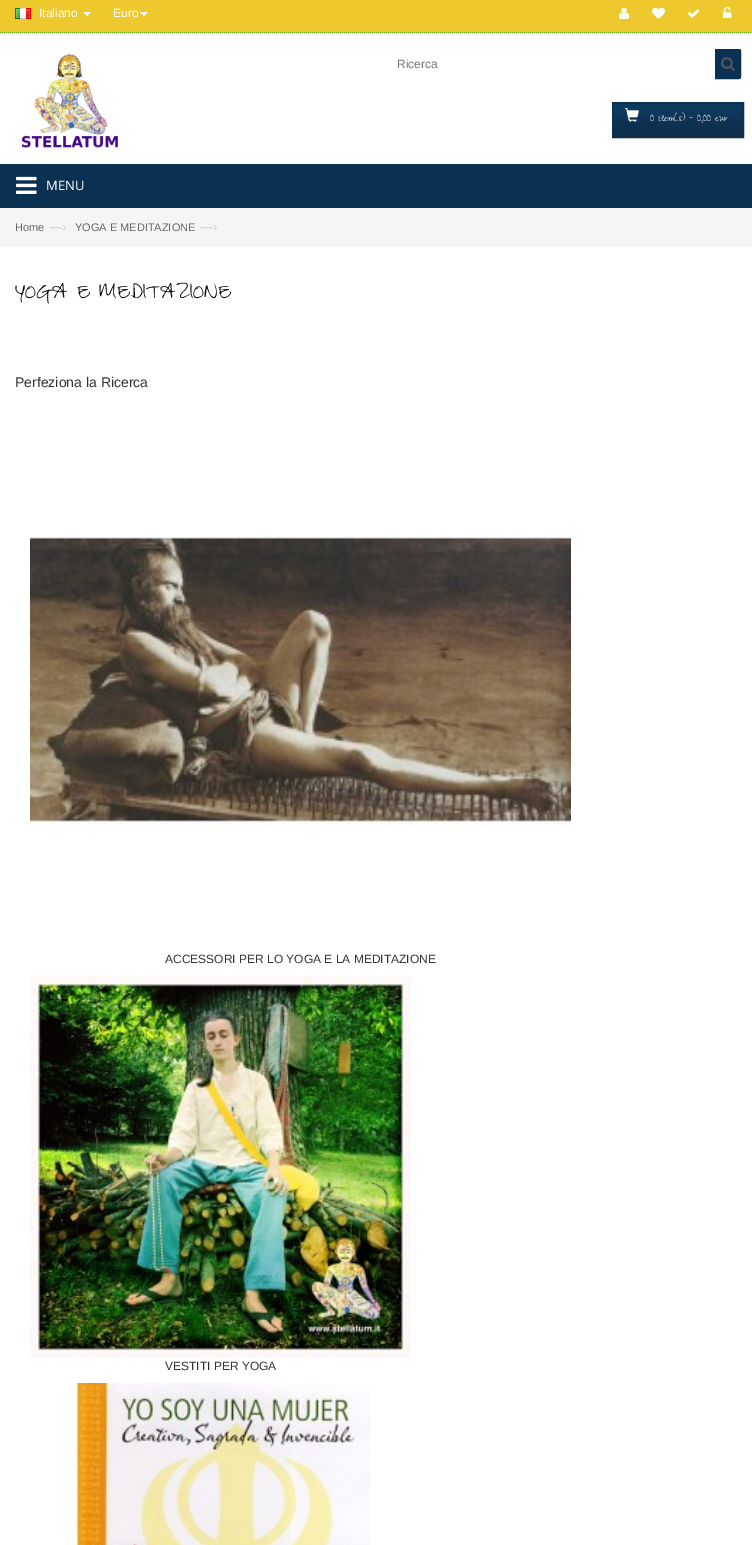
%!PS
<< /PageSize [752 1545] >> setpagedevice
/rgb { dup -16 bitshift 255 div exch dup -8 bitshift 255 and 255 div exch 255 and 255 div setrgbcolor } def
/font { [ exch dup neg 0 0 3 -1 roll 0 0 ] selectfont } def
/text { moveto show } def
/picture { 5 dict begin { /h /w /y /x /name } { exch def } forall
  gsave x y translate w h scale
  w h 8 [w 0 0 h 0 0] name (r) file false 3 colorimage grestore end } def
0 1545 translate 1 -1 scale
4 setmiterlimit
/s1 { /LiberationSans-Regular 12 font 16#FFFFFF rgb } def
/s2 { /LiberationSans-Regular 12 font 16#757575 rgb } def
/s3 { /Zeyada-Regular 11 font 16#FFFFFF rgb } def
/s4 { /OpenSans-Regular 13 font 16#FFFFFF rgb } def
/s5 { /LiberationSans-Regular 11 font 16#666666 rgb } def
/s6 { /LiberationSans-Regular 13 font 16#CCCCCC rgb } def
/s7 { /Zeyada-Regular 24 font 16#000000 rgb } def
/s8 { /LiberationSans-Regular 14 font 16#333333 rgb } def
/s9 { /LiberationSans-Regular 12 font 16#333333 rgb } def
16#FFFFFF rgb
0 0 752 1545 rectfill
16#EEC92E rgb
0 0 752 33 rectfill
16#6AAE12 rgb
[1 1] 0 setdash
0 32.5 moveto 752 32.5 lineto stroke
(pic1.raw) 15 8 16 11 picture
s1
(Italiano) 39 17 text
83 12 moveto 91 12 lineto 87 16 lineto closepath fill
(Euro) 113 17 text
140 12 moveto 148 12 lineto 144 16 lineto closepath fill
(pic2.raw) 619 7 11 12 picture
(pic3.raw) 652 7 13 12 picture
(pic4.raw) 687 9 13 9 picture
(pic5.raw) 723 6 9 12 picture
(pic6.raw) 21 54 97 94 picture
s2
(Ricerca) 397 68 text
16#0A3151 rgb
715.5 49.5 moveto 739 49.5 lineto 740 49.5 740.5 50 740.5 51 curveto 740.5 77 lineto 740.5 78 740 78.5 739 78.5 curveto 715.5 78.5 lineto closepath gsave fill grestore
[] 0 setdash
stroke
(pic7.raw) 721 57 14 15 picture
gsave 613 103 moveto 743 103 lineto 743 137 lineto 613 137 lineto closepath clip newpath
<< /ShadingType 2 /ColorSpace /DeviceRGB /Coords [678 103 678 137] /Extend [true true] /Function << /FunctionType 3 /Domain [0 1] /Functions [<< /FunctionType 2 /Domain [0 1] /C0 [0.039 0.192 0.318] /C1 [0.039 0.192 0.318] /N 1 >> << /FunctionType 2 /Domain [0 1] /C0 [0.039 0.192 0.318] /C1 [0.047 0.216 0.353] /N 1 >> << /FunctionType 2 /Domain [0 1] /C0 [0.047 0.216 0.353] /C1 [0.051 0.231 0.38] /N 1 >> << /FunctionType 2 /Domain [0 1] /C0 [0.051 0.231 0.38] /C1 [0.051 0.173 0.275] /N 1 >>] /Bounds [0.01 0.03 0.07] /Encode [0 1 0 1 0 1 0 1] >> >> shfill grestore
612.5 102.5 131 35 rectstroke
(pic8.raw) 625 108 14 14 picture
s3
(0 item\(s\) - 0,00 eur) 650 121 text
16#0A3151 rgb
0 164 752 44 rectfill
(pic9.raw) 16 176 21 18 picture
s4
(MENU) 46 190 text
16#F5F5F5 rgb
0 208 752 39 rectfill
s5
(Home) 15 231 text
s6
(—›) 49 231 text
s5
(YOGA E MEDITAZIONE) 75 231 text
s6
(—›) 200 231 text
s7
(YOGA E MEDITAZIONE) 15 298 text
s8
(Perfeziona la Ricerca) 15 387 text
(pic10.raw) 30 537 541 290 picture
s9
(ACCESSORI PER LO YOGA E LA MEDITAZIONE) 165 963 text
(pic11.raw) 30 976 381 382 picture
(VESTITI PER YOGA) 165 1370 text
(pic12.raw) 74 1383 296 162 picture
showpage
